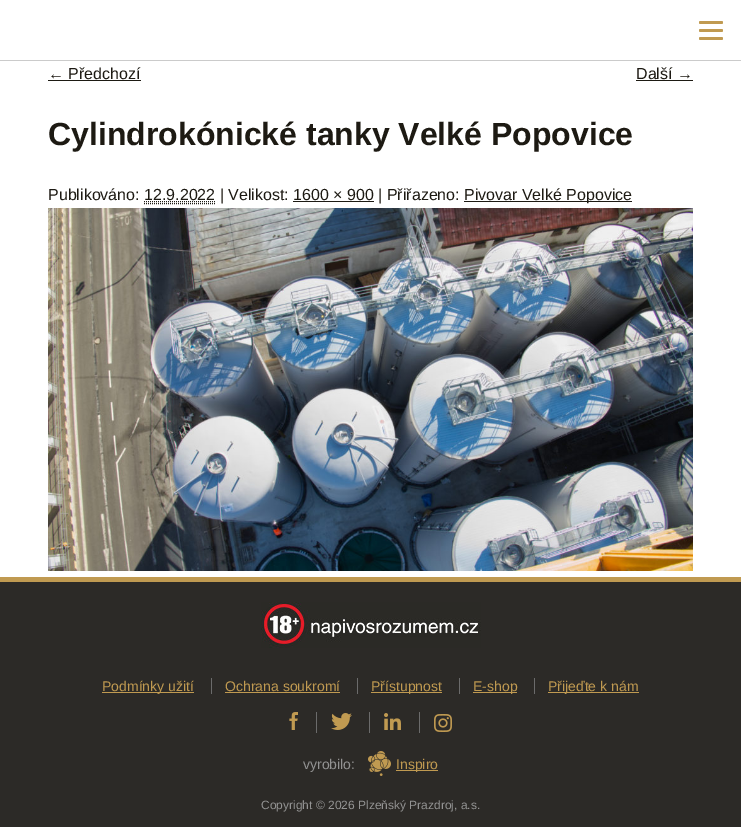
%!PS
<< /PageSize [741 827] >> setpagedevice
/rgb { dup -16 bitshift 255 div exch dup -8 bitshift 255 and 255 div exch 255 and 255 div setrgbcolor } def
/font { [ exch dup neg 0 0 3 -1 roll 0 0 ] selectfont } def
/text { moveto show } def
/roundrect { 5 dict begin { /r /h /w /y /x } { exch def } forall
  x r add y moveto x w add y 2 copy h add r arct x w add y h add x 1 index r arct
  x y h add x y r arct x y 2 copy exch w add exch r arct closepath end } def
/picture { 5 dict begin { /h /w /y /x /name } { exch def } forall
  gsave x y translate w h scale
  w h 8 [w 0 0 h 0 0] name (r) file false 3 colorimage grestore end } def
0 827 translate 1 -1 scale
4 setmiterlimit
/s1 { /LiberationSans-Regular 16 font 16#1D1A13 rgb } def
/s2 { /LiberationSans-Bold 32 font 16#1D1A13 rgb } def
/s3 { /LiberationSans-Regular 14 font 16#C09A51 rgb } def
/s4 { /LiberationSans-Regular 14 font 16#939393 rgb } def
/s5 { /LiberationSans-Regular 12 font 16#939393 rgb } def
16#FFFFFF rgb
0 0 741 827 rectfill
16#CBCBCB rgb
0 60 741 1 rectfill
16#C09A51 rgb
699 21 24 3 1.5 roundrect fill
699 29 24 3 1.5 roundrect fill
699 37 24 3 1.5 roundrect fill
s1
(← Předchozí) 48 79 text
48 80 93 1 rectfill
(Další →) 636 79 text
636 80 57 1 rectfill
s2
(Cylindrokónické tanky Velké Popovice) 48 145 text
s1
(Publikováno: 12.9.2022 | Velikost: 1600 × 900 | Přiřazeno:) 48 200 text
464 201 168 1 rectfill
(Pivovar Velké Popovice) 464 200 text
[1 1] 0 setdash
144 201.5 moveto 215.5 201.5 lineto stroke
293 201 81 1 rectfill
144 203.5 moveto 215 203.5 lineto stroke
(pic1.raw) 48 208 645 363 picture
16#2C2A27 rgb
0 582 741 245 rectfill
16#C09A51 rgb
0 577 741 5 rectfill
(pic2.raw) 261 602 220 46 picture
102 692 92 1 rectfill
s3
(Podmínky užití) 102 691 text
16#6B6B6B rgb
211 678 1 16 rectfill
s3
(Ochrana soukromí) 225 691 text
225 692 115 1 rectfill
16#6B6B6B rgb
357 678 1 16 rectfill
16#C09A51 rgb
371 692 71 1 rectfill
(Přístupnost) 371 691 text
16#6B6B6B rgb
459 678 1 16 rectfill
16#C09A51 rgb
473 692 44 1 rectfill
(E-shop) 473 691 text
16#6B6B6B rgb
534 678 1 16 rectfill
16#C09A51 rgb
548 692 91 1 rectfill
(Přijeďte k nám) 548 691 text
(pic3.raw) 289 712 9 18 picture
16#6B6B6B rgb
316 712 1 21 rectfill
(pic4.raw) 331 713 21 17 picture
369 712 1 21 rectfill
(pic5.raw) 384 713 17 17 picture
419 712 1 21 rectfill
(pic6.raw) 434 714 18 18 picture
s4
(vyrobilo:) 303 769 text
(pic7.raw) 368 751 23 25 picture
16#C09A51 rgb
396 770 42 1 rectfill
(Inspiro) 396 769 text
s5
(Copyright © 2026 Plzeňský Prazdroj, a.s.) 261 809 text
showpage
